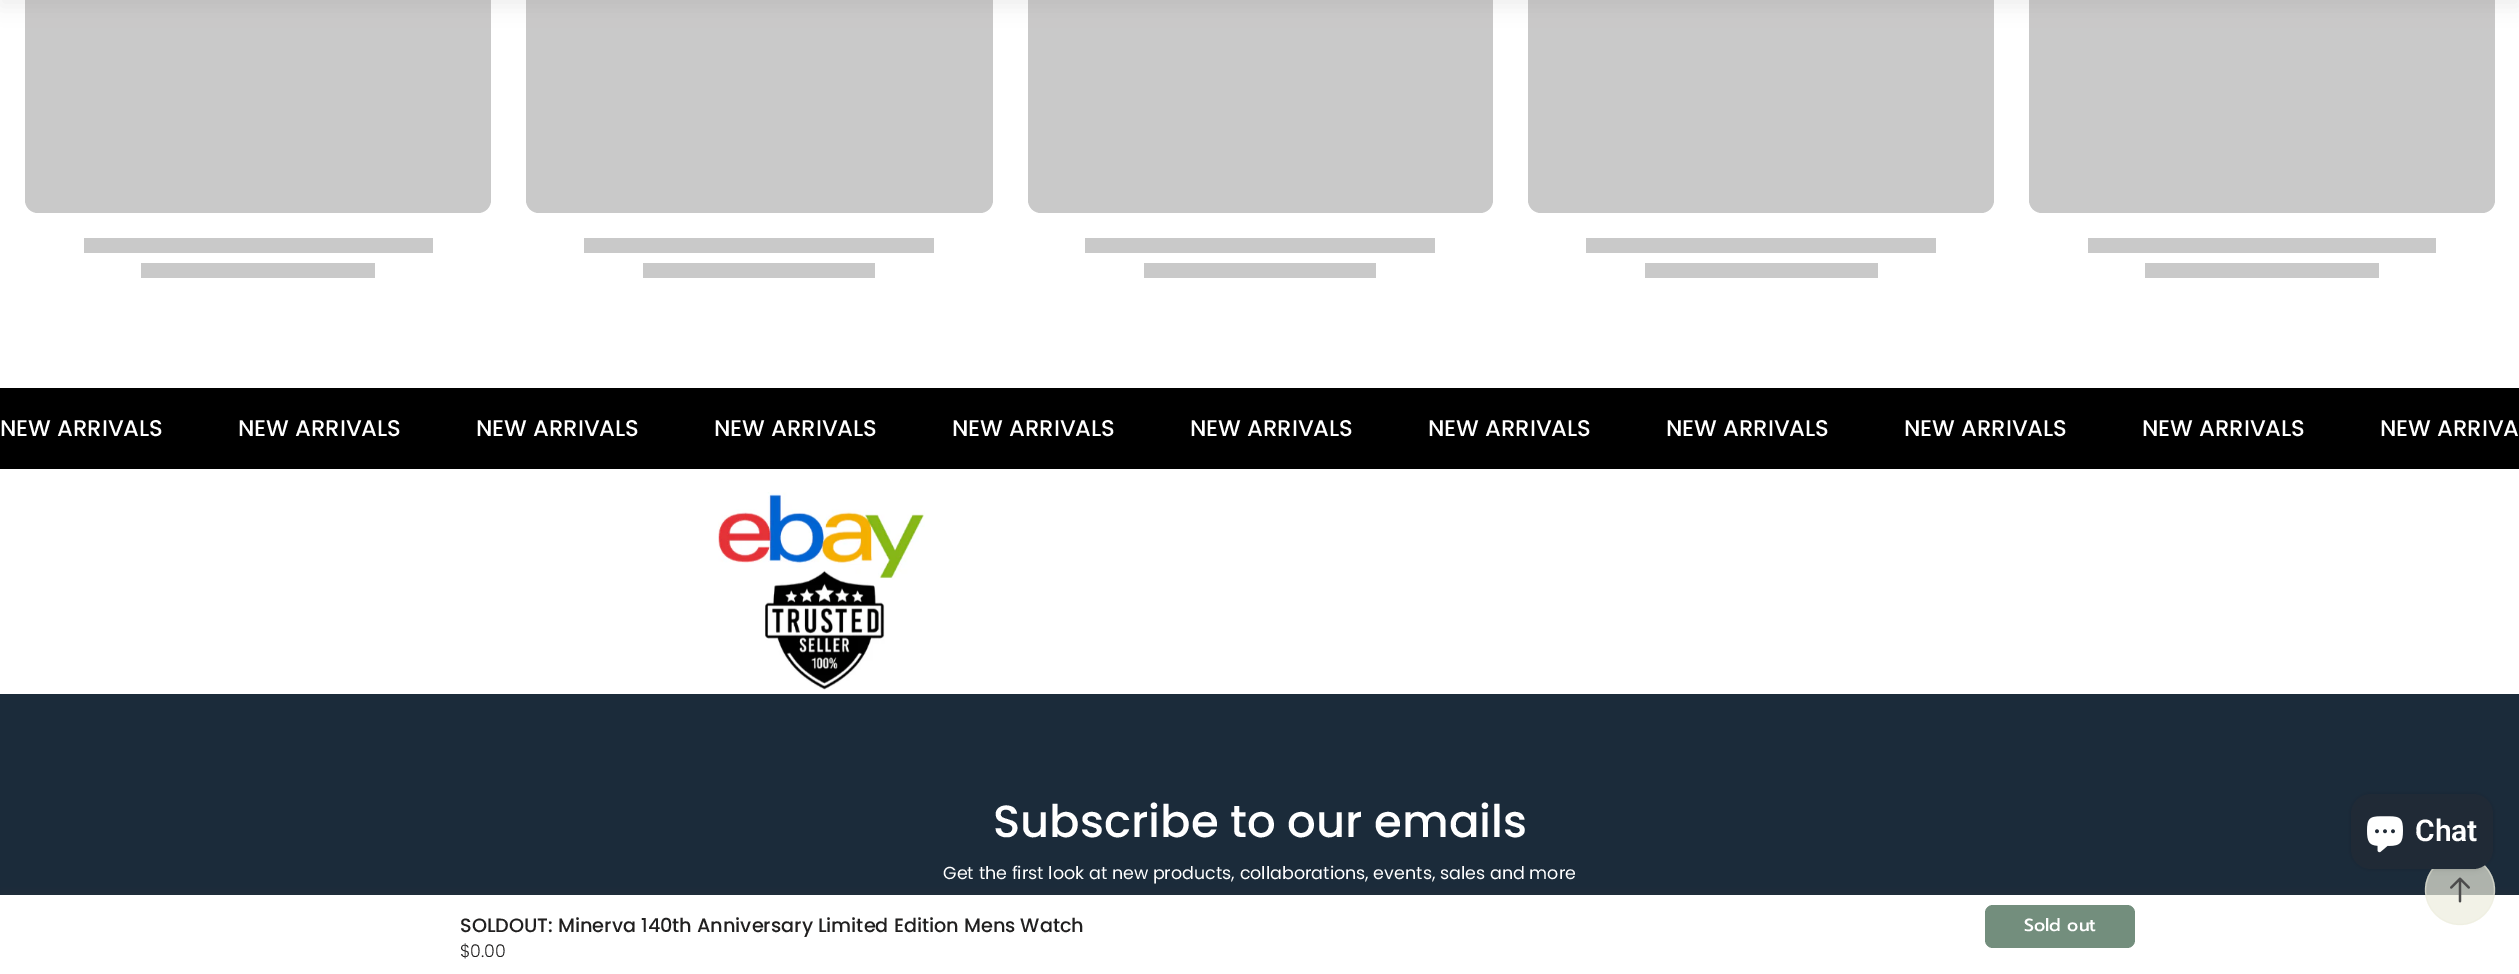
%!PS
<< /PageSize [2519 974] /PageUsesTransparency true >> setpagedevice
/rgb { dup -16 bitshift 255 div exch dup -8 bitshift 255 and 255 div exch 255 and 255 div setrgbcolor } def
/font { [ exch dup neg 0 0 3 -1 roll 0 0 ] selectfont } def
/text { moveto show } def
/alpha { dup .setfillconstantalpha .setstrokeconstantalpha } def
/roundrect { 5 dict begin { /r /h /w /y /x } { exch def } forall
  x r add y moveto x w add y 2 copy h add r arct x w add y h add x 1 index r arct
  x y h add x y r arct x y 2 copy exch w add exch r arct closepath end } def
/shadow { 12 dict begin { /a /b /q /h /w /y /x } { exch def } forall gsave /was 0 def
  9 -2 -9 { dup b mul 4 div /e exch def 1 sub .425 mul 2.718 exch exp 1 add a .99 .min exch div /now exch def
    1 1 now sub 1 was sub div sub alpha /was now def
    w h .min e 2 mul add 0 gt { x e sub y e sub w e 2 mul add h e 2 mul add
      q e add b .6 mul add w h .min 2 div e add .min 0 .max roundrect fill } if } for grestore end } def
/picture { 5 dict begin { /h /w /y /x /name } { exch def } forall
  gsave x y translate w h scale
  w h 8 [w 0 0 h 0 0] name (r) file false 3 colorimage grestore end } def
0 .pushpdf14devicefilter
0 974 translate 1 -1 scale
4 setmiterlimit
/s1 { /Poppins-Medium 22.75 font 16#FFFFFF rgb } def
/s2 { /Poppins-Medium 19.25 font 16#212020 rgb } def
/s3 { /Poppins-Light 17.5 font 16#212020 rgb } def
/s4 { /Prompt-Medium 17.5 font 16#FFFFFF rgb } def
/s5 { /Poppins-Medium 45 font 16#FFFFFF rgb } def
/s6 { /Poppins-Regular 17.5 font 16#FFFFFF rgb } def
/s7 { /Roboto-SemiBold 30 font 16#FFFFFF rgb } def
16#FFFFFF rgb
0 0 2519 974 rectfill
16#C9C9C9 rgb
25 -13 466 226 13 roundrect fill
526 -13 467 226 13 roundrect fill
1028 -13 465 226 13 roundrect fill
1528 -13 466 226 13 roundrect fill
2029 -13 466 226 13 roundrect fill
16#4B4949 rgb
0 -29 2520 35 0 9.5 0.1 shadow
16#C9C9C9 rgb
84 238 349 15 rectfill
141 263 234 15 rectfill
584 238 350 15 rectfill
643 263 232 15 rectfill
1085 238 350 15 rectfill
1144 263 232 15 rectfill
1586 238 350 15 rectfill
1645 263 233 15 rectfill
2088 238 348 15 rectfill
2145 263 234 15 rectfill
16#000000 rgb
0 388 2519 81 rectfill
s1
(NEW ARRIVALS) 0 436 text
(NEW ARRIVALS) 238 436 text
(NEW ARRIVALS) 476 436 text
(NEW ARRIVALS) 714 436 text
(NEW ARRIVALS) 952 436 text
(NEW ARRIVALS) 1190 436 text
(NEW ARRIVALS) 1428 436 text
(NEW ARRIVALS) 1666 436 text
(NEW ARRIVALS) 1904 436 text
(NEW ARRIVALS) 2142 436 text
(NEW ARRIVA) 2380 436 text
16#1B2B3A rgb
0 694 2519 201 rectfill
16#4B4949 rgb
1 891 2518 78 0 6 0.1 shadow
16#FFFFFF rgb
0 895 2519 79 rectfill
s2
(SOLDOUT: Minerva 140th Anniversary Limited Edition Mens Watch) 460 932 text
s3
($0.00) 460 957 text
16#738E7D rgb
1985 905 150 43 8 roundrect fill
s4
(Sold out) 2024 931 text
(pic1.raw) 718 492 207 198 picture
s5
(Subscribe to our emails) 993 837 text
s6
(Get the first look at new products, collaborations, events, sales and more) 943 879 text
0.7 alpha
16#EDEDDD rgb
2425 890 moveto 2425 871 2441 855 2460 855 curveto 2479 855 2495 871 2495 890 curveto 2495 909 2479 925 2460 925 curveto 2441 925 2425 909 2425 890 curveto closepath fill
0.5 alpha
1.2 setlinewidth
2425.5 890 moveto 2425.5 871 2441 855.5 2460 855.5 curveto 2479 855.5 2494.5 871 2494.5 890 curveto 2494.5 909 2479 924.5 2460 924.5 curveto 2441 924.5 2425.5 909 2425.5 890 curveto closepath stroke
1 alpha
(pic2.raw) 2450 877 20 26 picture
16#000000 rgb
2351 794 142 75 20 3 0.15 shadow
16#202A36 rgb
2351 794 142 75 20 roundrect fill
(pic3.raw) 2367 816 36 37 picture
s7
(Chat) 2415 841 text
.poppdf14devicefilter showpage
